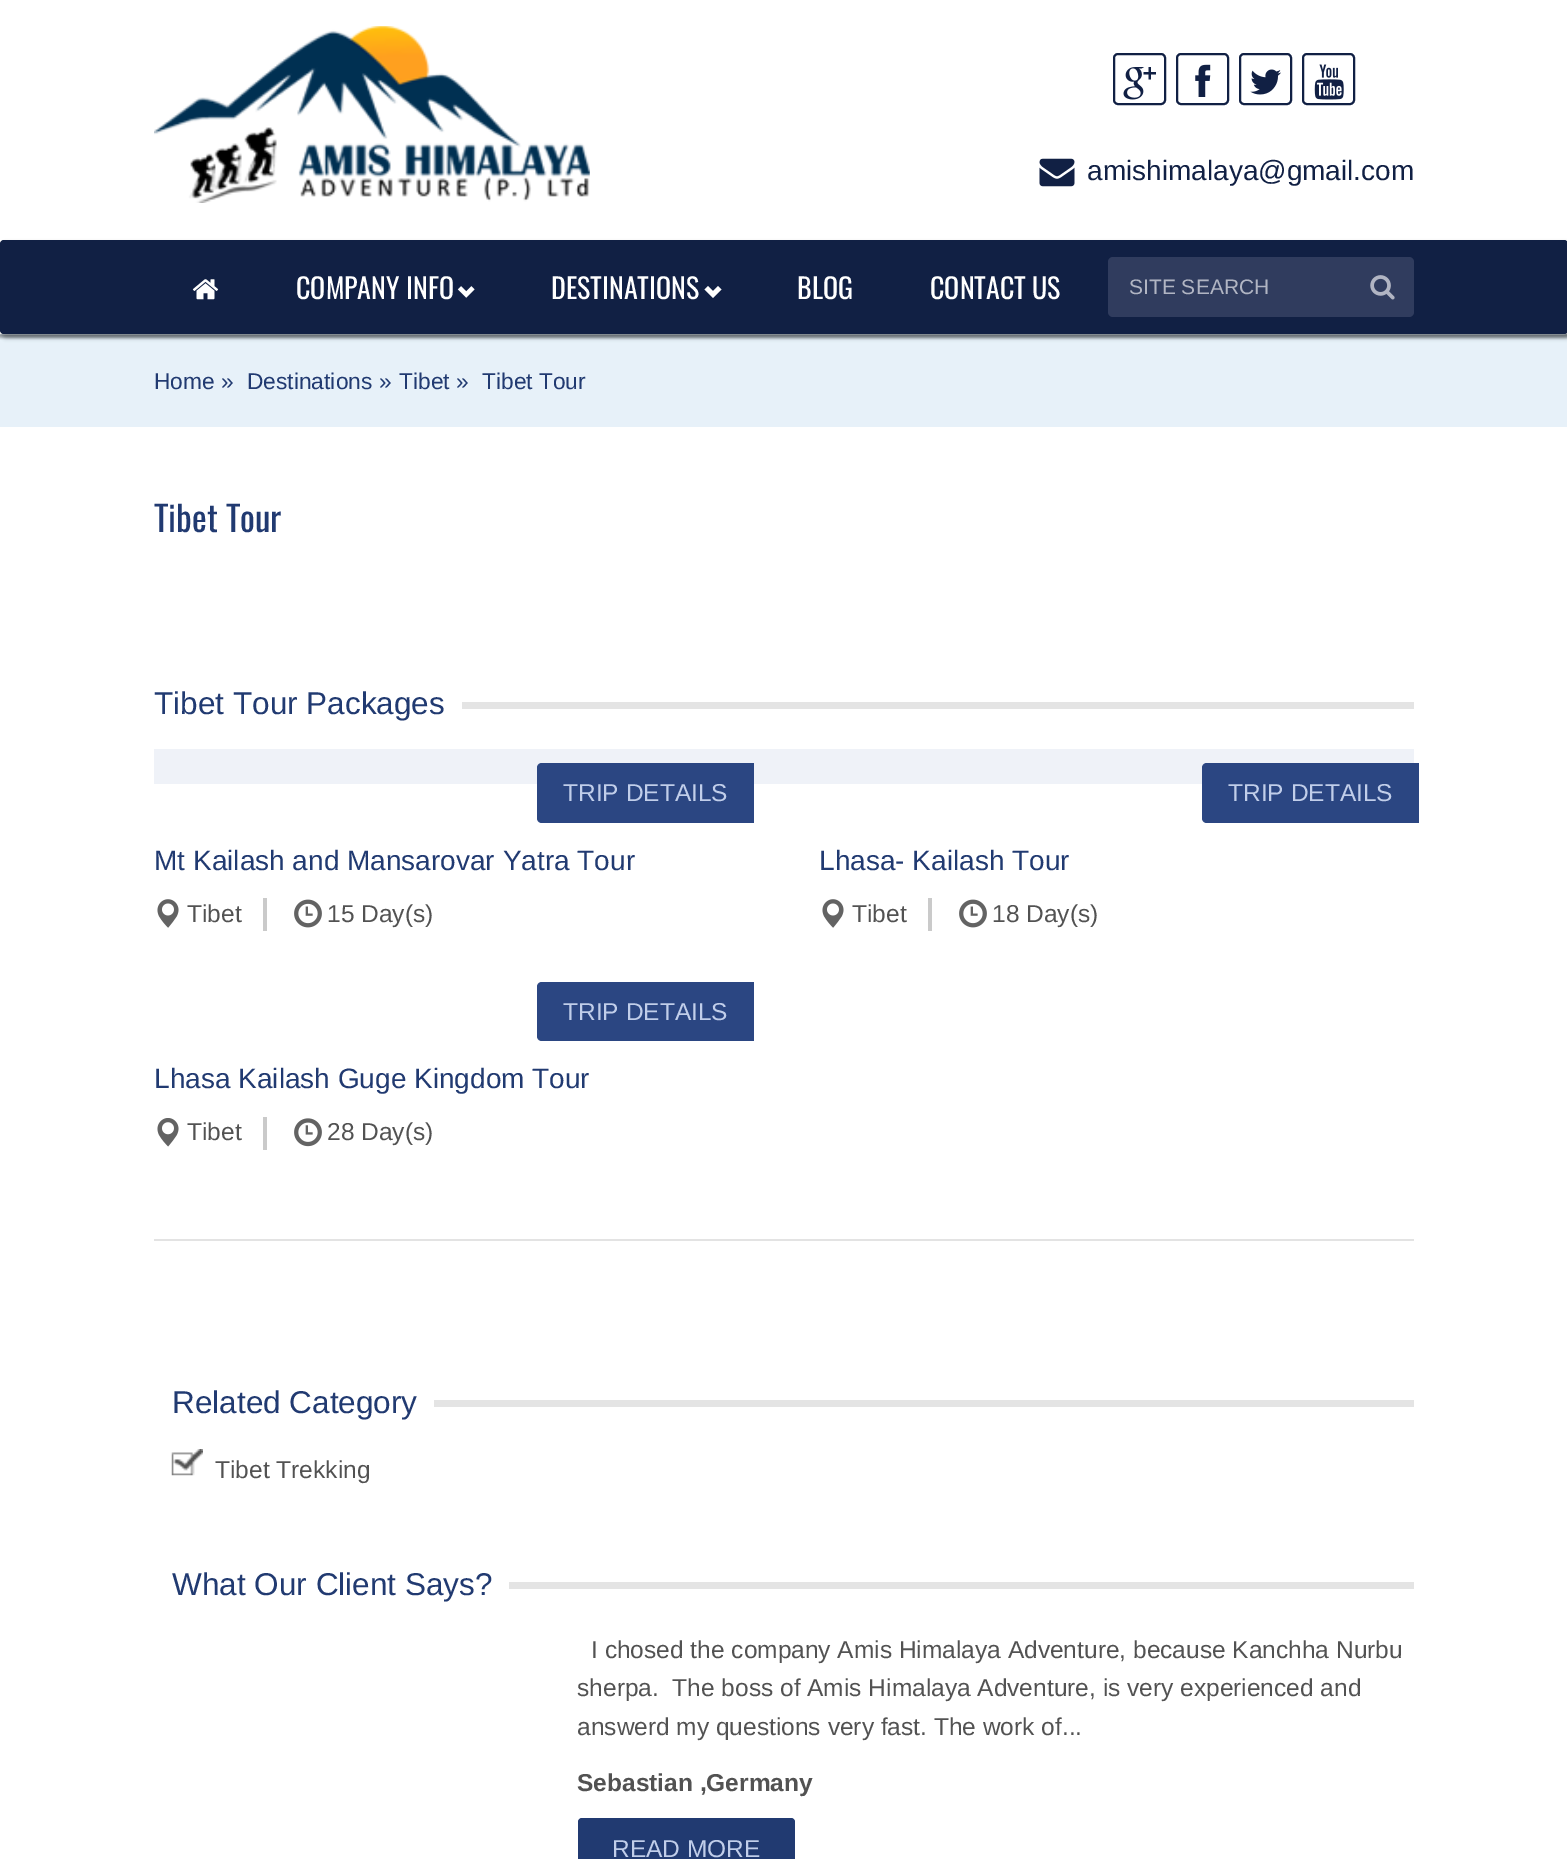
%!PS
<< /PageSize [1567 1859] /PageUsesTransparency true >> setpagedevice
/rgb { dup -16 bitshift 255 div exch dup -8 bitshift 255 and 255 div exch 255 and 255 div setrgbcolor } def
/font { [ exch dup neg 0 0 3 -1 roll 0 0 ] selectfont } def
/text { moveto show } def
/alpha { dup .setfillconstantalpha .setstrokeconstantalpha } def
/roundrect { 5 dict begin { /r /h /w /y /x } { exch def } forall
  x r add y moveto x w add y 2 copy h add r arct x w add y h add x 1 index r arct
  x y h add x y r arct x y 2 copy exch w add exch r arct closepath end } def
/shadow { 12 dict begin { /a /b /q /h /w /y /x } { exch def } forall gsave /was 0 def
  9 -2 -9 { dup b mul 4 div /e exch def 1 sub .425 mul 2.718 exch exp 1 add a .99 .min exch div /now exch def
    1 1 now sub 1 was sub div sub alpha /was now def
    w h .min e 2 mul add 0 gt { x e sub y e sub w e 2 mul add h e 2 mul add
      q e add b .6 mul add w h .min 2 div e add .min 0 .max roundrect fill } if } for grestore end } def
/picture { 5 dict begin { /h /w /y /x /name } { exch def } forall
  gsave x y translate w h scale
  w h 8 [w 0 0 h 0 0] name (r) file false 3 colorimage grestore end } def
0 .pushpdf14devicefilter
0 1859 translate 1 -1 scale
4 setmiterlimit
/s1 { /LiberationSans-Regular 28 font 16#112044 rgb } def
/s2 { /Oswald-Regular 28 font 16#FFFFFF rgb } def
/s3 { /LiberationSans-Regular 21 font 16#B1B5C3 rgb } def
/s4 { /LiberationSans-Regular 22.75 font 16#213A71 rgb } def
/s5 { /Oswald-Regular 35 font 16#213A71 rgb } def
/s6 { /LiberationSans-Regular 31.5 font 16#213A71 rgb } def
/s7 { /LiberationSans-Regular 24.5 font 16#C1CEEA rgb } def
/s8 { /LiberationSans-Regular 28 font 16#213A71 rgb } def
/s9 { /LiberationSans-Regular 24.5 font 16#525252 rgb } def
/s10 { /LiberationSans-Bold 24.5 font 16#525252 rgb } def
16#FFFFFF rgb
0 0 1567 1859 rectfill
(pic1.raw) 154 26 436 177 picture
16#112044 rgb
2 setlinewidth
1114 54 51 50 4 roundrect stroke
(pic2.raw) 1123 67 33 33 picture
1177 54 51 50 4 roundrect stroke
(pic3.raw) 1195 64 16 33 picture
1240 54 51 50 4 roundrect stroke
(pic4.raw) 1250 69 31 26 picture
1303 54 51 50 4 roundrect stroke
(pic5.raw) 1314 64 30 36 picture
(pic6.raw) 1039 158 36 29 picture
s1
(amishimalaya@gmail.com) 1087 180 text
16#000000 rgb
2 243 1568 95 4 2 0.34 shadow
16#112044 rgb
0 240 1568 94 4 roundrect fill
(pic7.raw) 192 279 27 21 picture
s2
(COMPANY INFO) 296 299 text
(pic8.raw) 457 286 18 12 picture
(DESTINATIONS) 551 299 text
704.5 289.5 moveto 713 298 lineto 721.5 289.5 lineto 718 286 lineto 713 291 lineto 708 286 lineto closepath fill
(BLOG) 797 299 text
(CONTACT US) 930 299 text
16#303C5E rgb
1108 257 306 60 5 roundrect fill
s3
(SITE SEARCH) 1129 294 text
(pic9.raw) 1370 275 25 25 picture
0.1 alpha
16#1079C4 rgb
0 334 1567 93 rectfill
1 alpha
(pic10.raw) 0 334 1567 6 picture
s4
(Home ») 154 389 text
(Destinations ») 247 389 text
(Tibet ») 399 389 text
(Tibet Tour) 482 389 text
s5
(Tibet Tour) 154 532 text
s6
(Tibet Tour Packages) 154 714 text
16#E4E4E4 rgb
462 702 952 7 rectfill
16#EFF2F8 rgb
154 749 1260 35 rectfill
16#2B4682 rgb
542 763 moveto 754 763 lineto 754 823 lineto 542 823 lineto 539 823 537 821 537 818 curveto 537 768 lineto 537 765 539 763 542 763 curveto closepath fill
s7
(TRIP DETAILS) 563 801 text
s8
(Mt Kailash and Mansarovar Yatra Tour) 154 870 text
16#CACACA rgb
263 898 4 33 rectfill
(pic11.raw) 157 899 22 29 picture
s9
(Tibet) 187 922 text
(pic12.raw) 294 899 28 29 picture
(15 Day\(s\)) 327 922 text
16#2B4682 rgb
1207 763 moveto 1419 763 lineto 1419 823 lineto 1207 823 lineto 1204 823 1202 821 1202 818 curveto 1202 768 lineto 1202 765 1204 763 1207 763 curveto closepath fill
s7
(TRIP DETAILS) 1228 801 text
s8
(Lhasa- Kailash Tour) 819 870 text
16#CACACA rgb
928 898 4 33 rectfill
(pic11.raw) 822 899 22 29 picture
s9
(Tibet) 852 922 text
(pic12.raw) 959 899 28 29 picture
(18 Day\(s\)) 992 922 text
16#2B4682 rgb
542 982 moveto 754 982 lineto 754 1041 lineto 542 1041 lineto 539 1041 537 1039 537 1036 curveto 537 987 lineto 537 984 539 982 542 982 curveto closepath fill
s7
(TRIP DETAILS) 563 1020 text
s8
(Lhasa Kailash Guge Kingdom Tour) 154 1088 text
16#CACACA rgb
263 1117 4 33 rectfill
(pic13.raw) 157 1118 22 29 picture
s9
(Tibet) 187 1140 text
(pic14.raw) 294 1118 28 29 picture
(28 Day\(s\)) 327 1140 text
16#E3E3E3 rgb
154 1239 1260 2 rectfill
s6
(Related Category) 172 1413 text
16#E4E4E4 rgb
434 1400 980 7 rectfill
(pic15.raw) 171 1449 32 27 picture
s9
(Tibet Trekking) 215 1478 text
s6
(What Our Client Says?) 172 1595 text
16#E4E4E4 rgb
509 1582 905 7 rectfill
s9
(I chosed the company Amis Himalaya Adventure, because Kanchha Nurbu) 591 1658 text
(sherpa.  The boss of Amis Himalaya Adventure, is very experienced and) 577 1696 text
(answerd my questions very fast. The work of...) 577 1735 text
s10
(Sebastian ,Germany) 577 1791 text
16#213A71 rgb
578 1818 217 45 4 roundrect fill
s7
(READ MORE) 612 1857 text
.poppdf14devicefilter showpage
